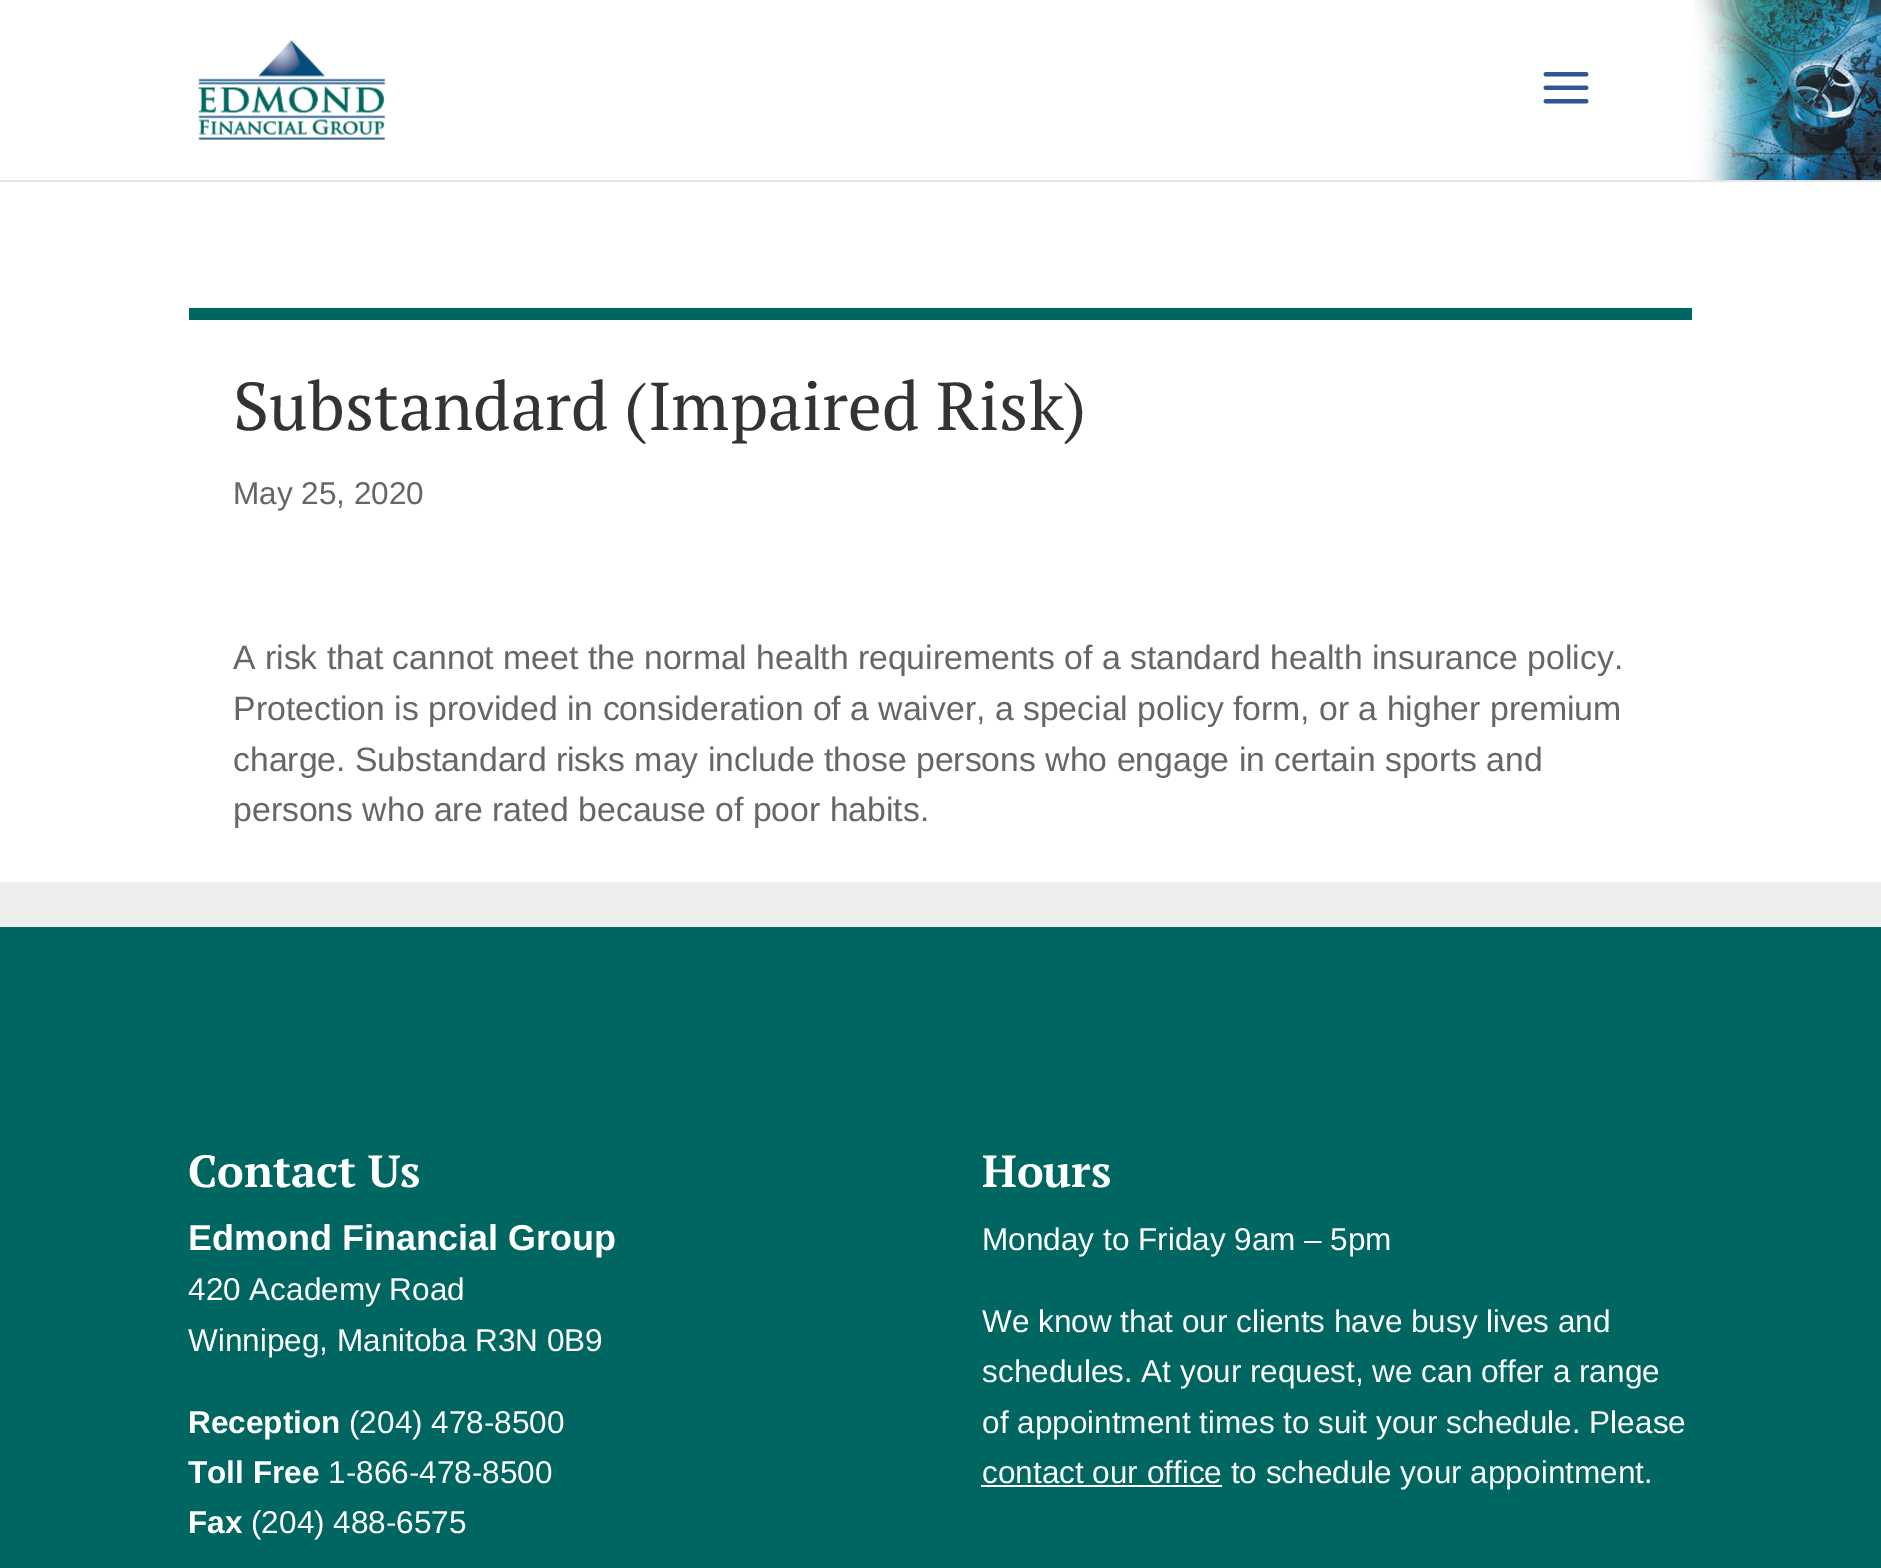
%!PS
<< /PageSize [1881 1568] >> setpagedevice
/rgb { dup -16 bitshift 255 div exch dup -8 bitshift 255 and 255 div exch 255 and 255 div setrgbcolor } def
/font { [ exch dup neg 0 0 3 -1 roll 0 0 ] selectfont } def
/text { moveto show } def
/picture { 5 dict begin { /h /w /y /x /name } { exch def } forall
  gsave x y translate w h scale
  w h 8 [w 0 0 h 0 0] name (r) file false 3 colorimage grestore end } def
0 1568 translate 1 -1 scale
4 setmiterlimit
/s1 { /PTSerif-Regular 67.5 font 16#333333 rgb } def
/s2 { /LiberationSans-Regular 31.5 font 16#666666 rgb } def
/s3 { /LiberationSans-Regular 33.75 font 16#666666 rgb } def
/s4 { /PTSerif-Bold 45 font 16#FFFFFF rgb } def
/s5 { /LiberationSans-Bold 36 font 16#FFFFFF rgb } def
/s6 { /LiberationSans-Regular 31.5 font 16#FFFFFF rgb } def
/s7 { /LiberationSans-Bold 31.5 font 16#FFFFFF rgb } def
16#EEEEEE rgb
0 0 1881 1568 rectfill
16#E6E6E6 rgb
0 180 1881 2 rectfill
16#FFFFFF rgb
0 0 1693 180 rectfill
(pic1.raw) 1693 0 188 180 picture
(pic2.raw) 197 40 188 100 picture
(pic3.raw) 1543 72 46 32 picture
0 182 1881 700 rectfill
16#006661 rgb
189 308 1503 12 rectfill
s1
(Substandard \(Impaired Risk\)) 233 430 text
s2
(May 25, 2020) 233 504 text
s3
(A risk that cannot meet the normal health requirements of a standard health insurance policy.) 233 669 text
(Protection is provided in consideration of a waiver, a special policy form, or a higher premium) 233 720 text
(charge. Substandard risks may include those persons who engage in certain sports and) 233 771 text
(persons who are rated because of poor habits.) 233 821 text
16#006661 rgb
0 927 1881 641 rectfill
s4
(Contact Us) 188 1187 text
s5
(Edmond Financial Group) 188 1250 text
s6
(420 Academy Road) 188 1300 text
(Winnipeg, Manitoba R3N 0B9) 188 1351 text
s7
(Reception) 188 1433 text
s6
(\(204\) 478-8500) 349 1433 text
s7
(Toll Free) 188 1483 text
s6
(1-866-478-8500) 328 1483 text
s7
(Fax) 188 1533 text
s6
(\(204\) 488-6575) 251 1533 text
s4
(Hours) 982 1187 text
s6
(Monday to Friday 9am – 5pm) 982 1250 text
(We know that our clients have busy lives and) 982 1332 text
(schedules. At your request, we can offer a range) 982 1382 text
(of appointment times to suit your schedule. Please) 982 1433 text
981 1485 241 2 rectfill
(contact our office to schedule your appointment.) 982 1483 text
showpage
